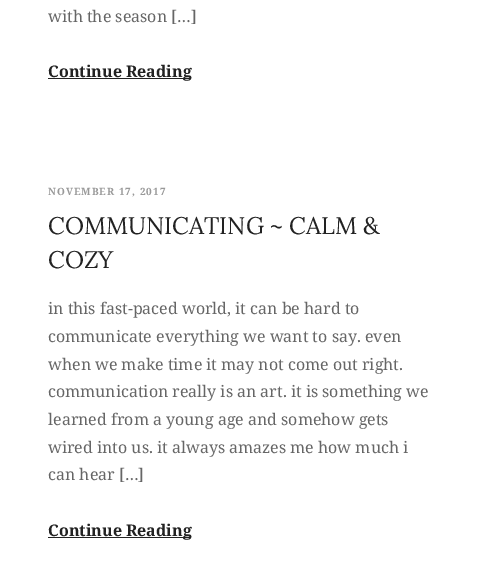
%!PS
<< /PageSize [477 583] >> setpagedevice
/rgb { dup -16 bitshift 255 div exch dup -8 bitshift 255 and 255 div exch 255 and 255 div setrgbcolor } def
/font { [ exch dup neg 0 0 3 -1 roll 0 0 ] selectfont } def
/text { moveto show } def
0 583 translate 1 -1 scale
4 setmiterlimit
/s1 { /NotoSerif-Regular 16 font 16#666666 rgb } def
/s2 { /NotoSerif-Bold 16 font 16#222222 rgb } def
/s3 { /Lora-Regular 24 font 16#222222 rgb } def
16#FFFFFF rgb
0 0 477 583 rectfill
s1
(with the season […]) 48 22 text
16#222222 rgb
48 78 143 1 rectfill
s2
(Continue Reading) 48 77 text
/NotoSerif-Bold 10 font
16#999999 rgb
48 195 moveto 1 0 (NOVEMBER 17, 2017) ashow
s3
(COMMUNICATING ~ CALM &) 48 234 text
(COZY) 48 268 text
s1
(in this fast-paced world, it can be hard to) 48 314 text
(communicate everything we want to say. even) 48 342 text
(when we make time it may not come out right.) 48 370 text
(communication really is an art. it is something we) 48 397 text
(learned from a young age and somehow gets) 48 425 text
(wired into us. it always amazes me how much i) 48 453 text
(can hear […]) 48 480 text
16#222222 rgb
48 537 143 1 rectfill
s2
(Continue Reading) 48 536 text
showpage
